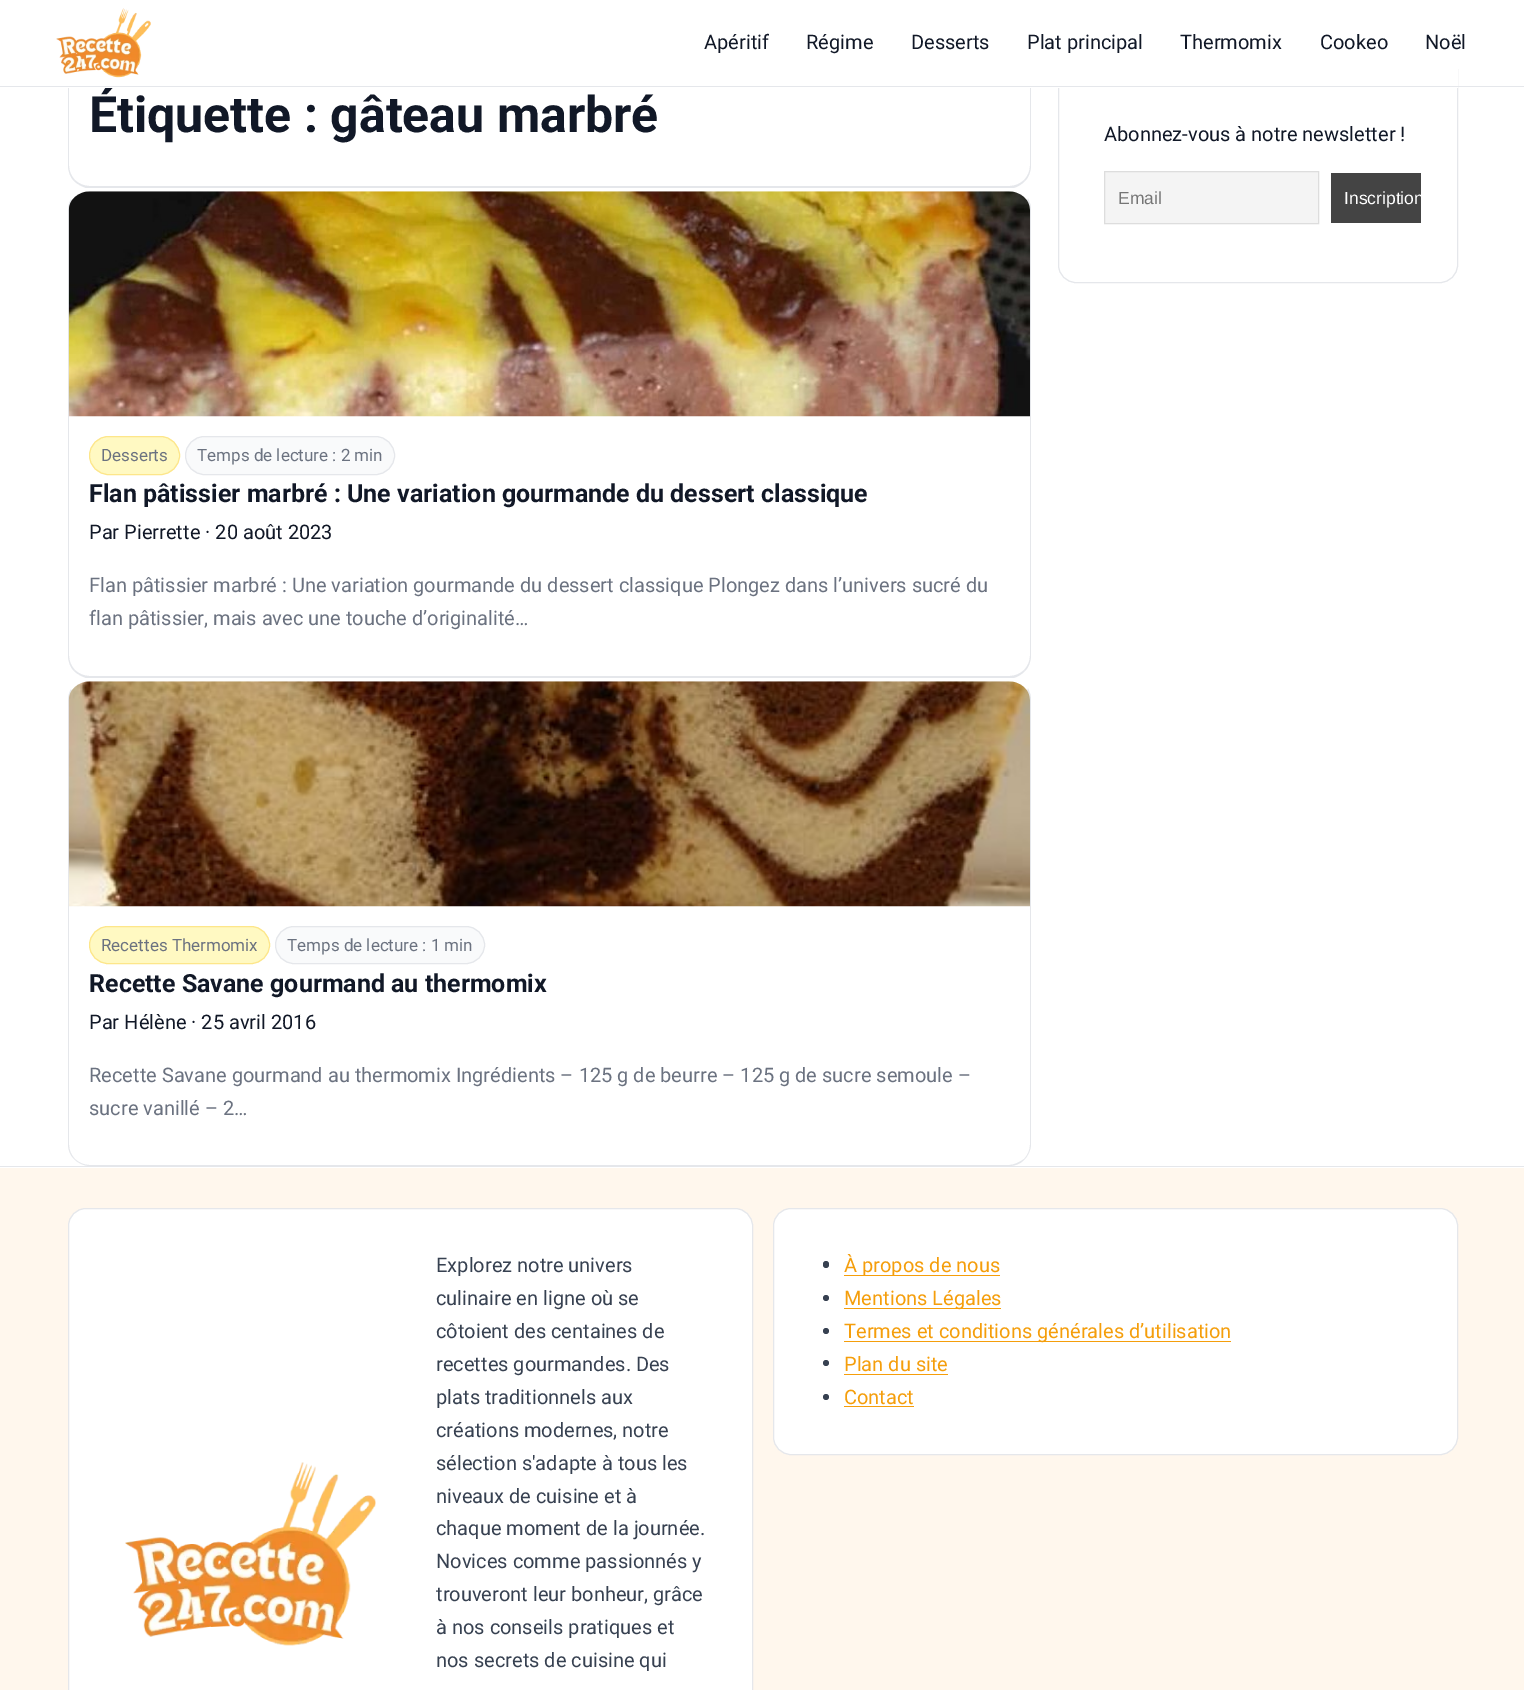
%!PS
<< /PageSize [1524 1690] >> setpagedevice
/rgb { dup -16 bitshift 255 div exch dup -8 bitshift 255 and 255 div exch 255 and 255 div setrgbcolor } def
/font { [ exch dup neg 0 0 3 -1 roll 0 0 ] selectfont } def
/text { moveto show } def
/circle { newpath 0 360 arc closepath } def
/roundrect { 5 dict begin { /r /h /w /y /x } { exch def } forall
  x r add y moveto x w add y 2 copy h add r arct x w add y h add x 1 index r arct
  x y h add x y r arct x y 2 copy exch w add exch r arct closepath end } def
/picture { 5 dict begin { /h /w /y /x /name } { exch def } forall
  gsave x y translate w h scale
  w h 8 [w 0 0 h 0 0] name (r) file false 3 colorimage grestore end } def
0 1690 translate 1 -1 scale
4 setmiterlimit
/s1 { /Roboto-Bold 50 font 16#111827 rgb } def
/s2 { /Roboto-Regular 20 font 16#111827 rgb } def
/s3 { /Roboto-Regular 17 font 16#6B7280 rgb } def
/s4 { /Roboto-Bold 25 font 16#111827 rgb } def
/s5 { /Roboto-Regular 20 font 16#6B7280 rgb } def
/s6 { /LiberationSans-Regular 17.5 font 16#757575 rgb } def
/s7 { /LiberationSans-Regular 17.5 font 16#FFFFFF rgb } def
/s8 { /Roboto-Regular 20 font 16#374151 rgb } def
/s9 { /Roboto-Regular 20 font 16#F59E0B rgb } def
16#FFFFFF rgb
0 0 1524 1690 rectfill
16#E5E7EB rgb
1028 63 moveto 1030 67 1031 71 1031 75 curveto 1031 165 lineto 1031 171 1029 177 1025 181 curveto 1024 180 lineto 1028 176 1030 171 1030 165 curveto 1030 75 lineto 1030 72 1029 68 1027 66 curveto closepath fill
86 188 moveto 81 186 77 184 74 181 curveto 75 180 lineto 79 184 84 186 90 186 curveto 1009 186 lineto 1015 186 1020 184 1024 180 curveto 1025 181 lineto 1022 184 1018 187 1013 188 curveto closepath fill
74 181 moveto 70 177 68 171 68 165 curveto 68 75 lineto 68 71 69 67 71 63 curveto 72 66 lineto 70 68 69 72 69 75 curveto 69 165 lineto 69 171 71 176 75 180 curveto closepath fill
s1
(Étiquette : gâteau marbré) 89 132 text
16#E5E7EB rgb
1058.5 53.5 399 229 17.5 roundrect stroke
16#FFFFFF rgb
68 53 1390 35 rectfill
16#E5E7EB rgb
0 86 1524 1 rectfill
(pic1.raw) 56 8 95 70 picture
s2
(Apéritif) 704 49 text
(Régime) 806 49 text
(Desserts) 911 49 text
(Plat principal) 1027 49 text
(Thermomix) 1180 49 text
(Cookeo) 1320 49 text
(Noël) 1425 49 text
16#E5E7EB rgb
1028 198 moveto 1030 202 1031 206 1031 210 curveto 1031 655 lineto 1031 661 1029 667 1025 671 curveto 1024 670 lineto 1028 666 1030 661 1030 655 curveto 1030 210 lineto 1030 207 1029 203 1027 201 curveto closepath fill
86 678 moveto 81 676 77 674 74 671 curveto 75 670 lineto 79 674 84 676 90 676 curveto 1009 676 lineto 1015 676 1020 674 1024 670 curveto 1025 671 lineto 1022 674 1018 677 1013 678 curveto closepath fill
71 199 moveto 69 202 68 206 68 210 curveto 68 655 lineto 68 661 70 667 74 671 curveto 75 670 lineto 71 666 69 661 69 655 curveto 69 210 lineto 69 207 70 203 72 201 curveto closepath fill
(pic2.raw) 68 191 962 226 picture
16#FFF9C2 rgb
89.5 436.5 90 38 19 roundrect gsave fill grestore
16#FDE68A rgb
stroke
s3
(Desserts) 101 461 text
16#F9FAFB rgb
185.5 436.5 209 38 19 roundrect gsave fill grestore
16#E5E7EB rgb
stroke
s3
(Temps de lecture : 2 min) 197 461 text
s4
(Flan pâtissier marbré : Une variation gourmande du dessert classique) 89 502 text
s2
(Par Pierrette · 20 août 2023) 89 539 text
s5
(Flan pâtissier marbré : Une variation gourmande du dessert classique Plongez dans l’univers sucré du) 89 592 text
(flan pâtissier, mais avec une touche d’originalité…) 89 625 text
16#E5E7EB rgb
1028 688 moveto 1030 692 1031 696 1031 700 curveto 1031 1144 lineto 1031 1150 1028 1156 1024 1160 curveto 1024 1159 lineto 1028 1155 1030 1150 1030 1144 curveto 1030 700 lineto 1030 697 1029 693 1027 691 curveto closepath fill
1024 1160 moveto 1020 1164 1015 1166 1009 1166 curveto 90 1166 lineto 84 1166 78 1163 74 1159 curveto 75 1159 lineto 79 1163 84 1165 90 1165 curveto 1009 1165 lineto 1014 1165 1020 1162 1024 1159 curveto closepath fill
71 689 moveto 69 692 68 696 68 700 curveto 68 1144 lineto 68 1150 70 1155 74 1159 curveto 75 1159 lineto 71 1155 69 1150 69 1144 curveto 69 700 lineto 69 697 70 693 72 691 curveto closepath fill
(pic3.raw) 68 681 962 226 picture
16#FFF9C2 rgb
89.5 926.5 180 37 18.5 roundrect gsave fill grestore
16#FDE68A rgb
stroke
s3
(Recettes Thermomix) 101 951 text
16#F9FAFB rgb
275.5 926.5 209 37 18.5 roundrect gsave fill grestore
16#E5E7EB rgb
stroke
s3
(Temps de lecture : 1 min) 287 951 text
s4
(Recette Savane gourmand au thermomix) 89 992 text
s2
(Par Hélène · 25 avril 2016) 89 1029 text
s5
(Recette Savane gourmand au thermomix Ingrédients – 125 g de beurre – 125 g de sucre semoule –) 89 1082 text
(sucre vanillé – 2…) 89 1115 text
s2
(Abonnez-vous à notre newsletter !) 1104 141 text
16#F4F4F4 rgb
1104.5 171.5 moveto 1318.5 171.5 lineto 1318.5 223.5 lineto 1104.5 223.5 lineto closepath gsave fill grestore
16#DDDDDD rgb
stroke
s6
(Email) 1118 204 text
16#444444 rgb
1331 173 90 50 rectfill
gsave
1331 173 90 50 rectclip
s7
(Inscription) 1344 204 text
grestore
16#E5E7EB rgb
0 1166 1524 1 rectfill
16#FFF7ED rgb
0 1168 1524 522 rectfill
16#FFFFFF rgb
68.5 1208.5 684 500 17.5 roundrect gsave fill grestore
16#E5E7EB rgb
stroke
(pic4.raw) 125 1462 251 184 picture
s8
(Explorez notre univers) 436 1272 text
(culinaire en ligne où se) 436 1305 text
(côtoient des centaines de) 436 1338 text
(recettes gourmandes. Des) 436 1371 text
(plats traditionnels aux) 436 1404 text
(créations modernes, notre) 436 1437 text
(sélection s'adapte à tous les) 436 1470 text
(niveaux de cuisine et à) 436 1503 text
(chaque moment de la journée.) 436 1535 text
(Novices comme passionnés y) 436 1568 text
(trouveront leur bonheur, grâce) 436 1601 text
(à nos conseils pratiques et) 436 1634 text
(nos secrets de cuisine qui) 436 1667 text
16#FFFFFF rgb
773.5 1208.5 684 246 17.5 roundrect gsave fill grestore
16#E5E7EB rgb
stroke
16#374151 rgb
823 1261 6 7 3 roundrect fill
16#F59E0B rgb
844 1275 156 1 rectfill
(À propos de nous) 844 1272 text
16#374151 rgb
826 1298 3 circle fill
16#F59E0B rgb
844 1308 157 1 rectfill
(Mentions Légales) 844 1305 text
16#374151 rgb
826 1331 3 circle fill
16#F59E0B rgb
844 1341 387 1 rectfill
(Termes et conditions générales d’utilisation) 844 1338 text
16#374151 rgb
826 1363 3 circle fill
s9
(Plan du site) 844 1371 text
844 1374 104 1 rectfill
16#374151 rgb
826 1397 3 circle fill
s9
(Contact) 844 1404 text
844 1406 70 1 rectfill
showpage
